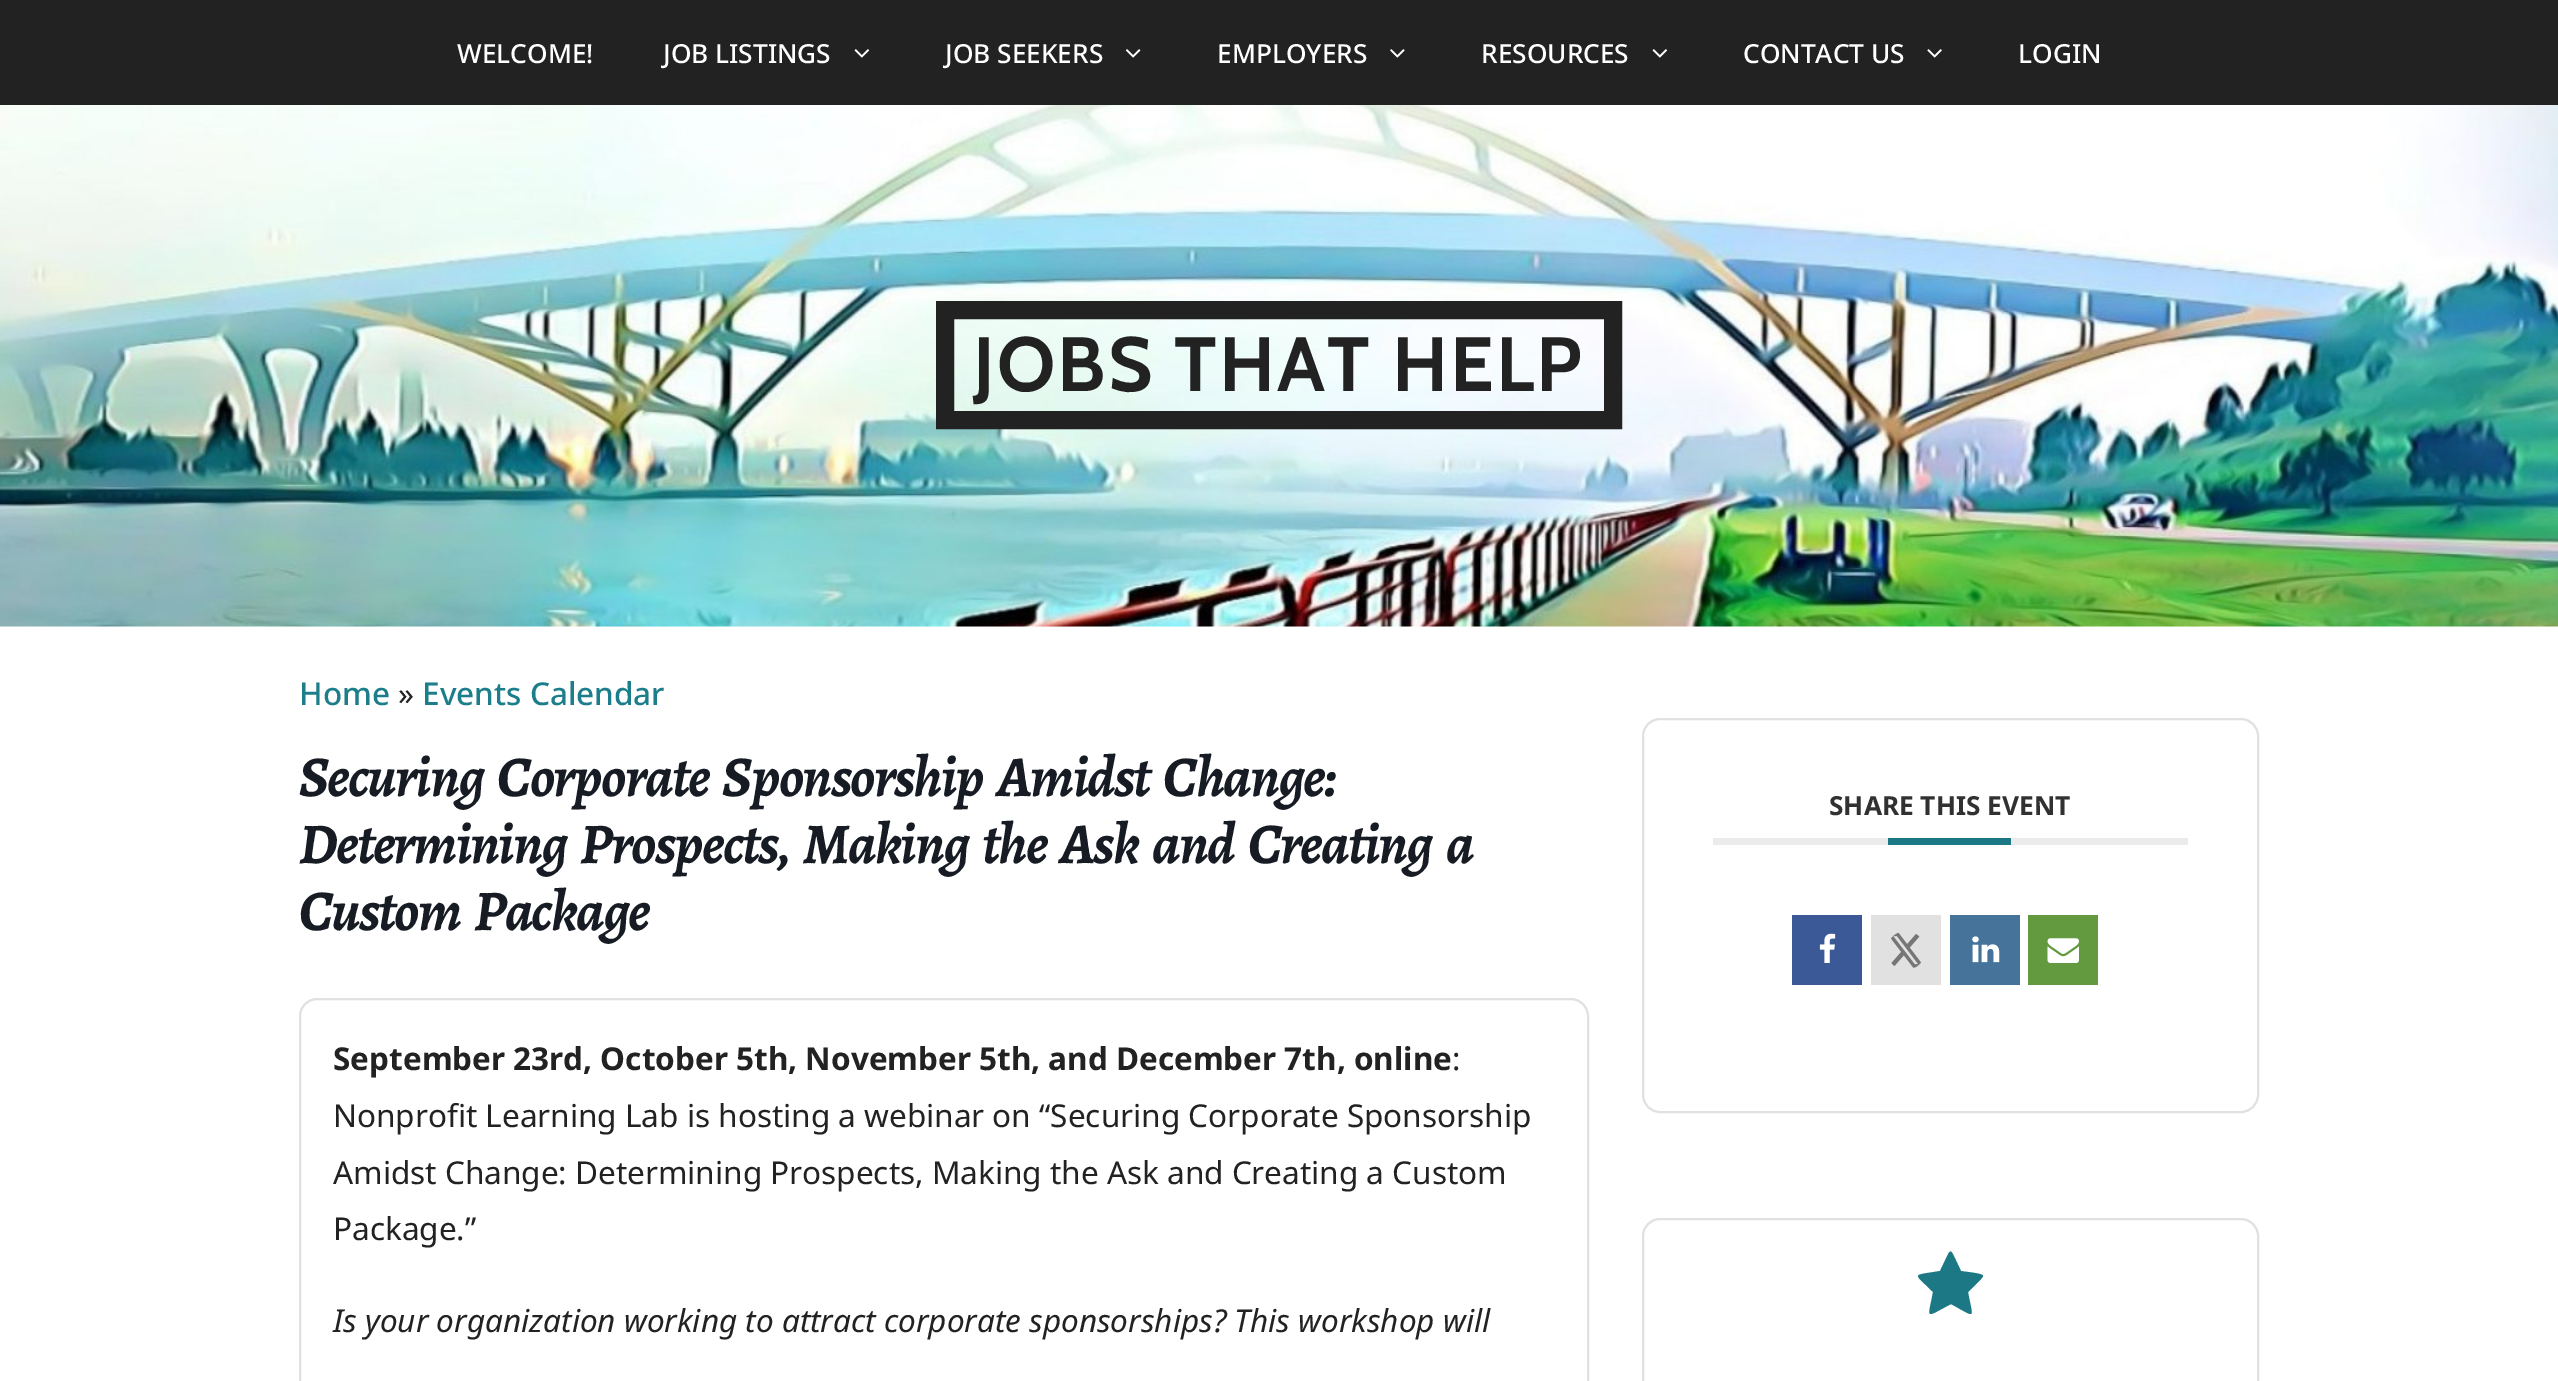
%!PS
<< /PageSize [2558 1381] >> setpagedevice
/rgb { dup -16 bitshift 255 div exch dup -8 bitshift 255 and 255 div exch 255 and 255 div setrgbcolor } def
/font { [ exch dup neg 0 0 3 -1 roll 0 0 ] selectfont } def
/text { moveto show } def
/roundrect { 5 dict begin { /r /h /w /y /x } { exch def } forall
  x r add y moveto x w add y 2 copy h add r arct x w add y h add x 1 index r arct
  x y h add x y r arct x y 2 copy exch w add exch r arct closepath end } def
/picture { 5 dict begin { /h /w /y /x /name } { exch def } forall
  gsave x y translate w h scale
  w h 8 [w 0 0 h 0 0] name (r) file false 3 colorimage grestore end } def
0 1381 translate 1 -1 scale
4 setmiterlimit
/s1 { /NotoSans-Medium 26.25 font 16#FFFFFF rgb } def
/s2 { /NotoSans-Medium 31.5 font 16#1D7E8B rgb } def
/s3 { /NotoSans-Regular 31.5 font 16#222222 rgb } def
/s4 { /NotoSans-Bold 31.5 font 16#222222 rgb } def
/s5 { /NotoSans-Italic 31.5 font 16#222222 rgb } def
/s6 { /NotoSans-Bold 26.25 font 16#313131 rgb } def
16#FFFFFF rgb
0 0 2558 1381 rectfill
16#222222 rgb
0 0 2558 105 rectfill
s1
(WELCOME!) 457 63 text
(JOB LISTINGS) 663 63 text
(pic1.raw) 854 49 16 9 picture
(JOB SEEKERS) 945 63 text
(pic2.raw) 1125 49 16 9 picture
(EMPLOYERS) 1217 63 text
(pic3.raw) 1390 49 15 9 picture
(RESOURCES) 1481 63 text
(pic1.raw) 1652 49 16 9 picture
(CONTACT US) 1743 63 text
(pic4.raw) 1927 49 15 9 picture
(LOGIN) 2018 63 text
(pic5.raw) 0 105 2558 522 picture
16#222222 rgb
18 setlinewidth
945 310 668 110 rectstroke
/Cabin-Bold 76.75 font
973 391 moveto 2.25 0 (JOBS THAT HELP) ashow
s2
(Home) 299 705 text
s3
(») 398 705 text
s2
(Events Calendar) 422 705 text
/Alegreya-BoldItalic 57.75 font
16#171C24 rgb
299 796 moveto 7 0 32 -1.75 0 (Securing Corporate Sponsorship Amidst Change:) awidthshow
299 863 moveto 7 0 32 -1.75 0 (Determining Prospects, Making the Ask and Creating a) awidthshow
299 930 moveto 7 0 32 -1.75 0 (Custom Package) awidthshow
16#E1E1E1 rgb
2 setlinewidth
300 999 1288 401 17 roundrect stroke
s4
(September 23rd, October 5th, November 5th, and December 7th, online) 333 1070 text
s3
(:) 1452 1070 text
(Nonprofit Learning Lab is hosting a webinar on “Securing Corporate Sponsorship) 333 1127 text
(Amidst Change: Determining Prospects, Making the Ask and Creating a Custom) 333 1184 text
(Package.”) 333 1240 text
s5
(Is your organization working to attract corporate sponsorships? This workshop will) 333 1332 text
16#E1E1E1 rgb
1643 719 615 393 17 roundrect stroke
16#EBEBEB rgb
1713 838 475 7 rectfill
s6
(SHARE THIS EVENT) 1829 815 text
16#1C7885 rgb
1888 838 123 7 rectfill
16#3B5996 rgb
1792 915 70 70 rectfill
(pic6.raw) 1819 933 17 30 picture
16#E1E1E1 rgb
1871 915 70 70 rectfill
(pic7.raw) 1891 932 30 36 picture
16#457399 rgb
1950 915 70 70 rectfill
(pic8.raw) 1972 936 28 27 picture
16#649A3F rgb
2028 915 70 70 rectfill
(pic9.raw) 2047 938 32 25 picture
16#E1E1E1 rgb
1643 1219 615 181 17 roundrect stroke
16#1C7885 rgb
1983 1276 moveto 1983 1278 1970 1290 1968 1292 curveto 1973 1320 1977 1318 1951 1304 curveto 1924 1318 1928 1320 1933 1292 curveto 1913 1272 1911 1276 1940 1271 curveto 1953 1245 1948 1245 1961 1271 curveto 1965 1272 1983 1273 1983 1276 curveto closepath fill
showpage
